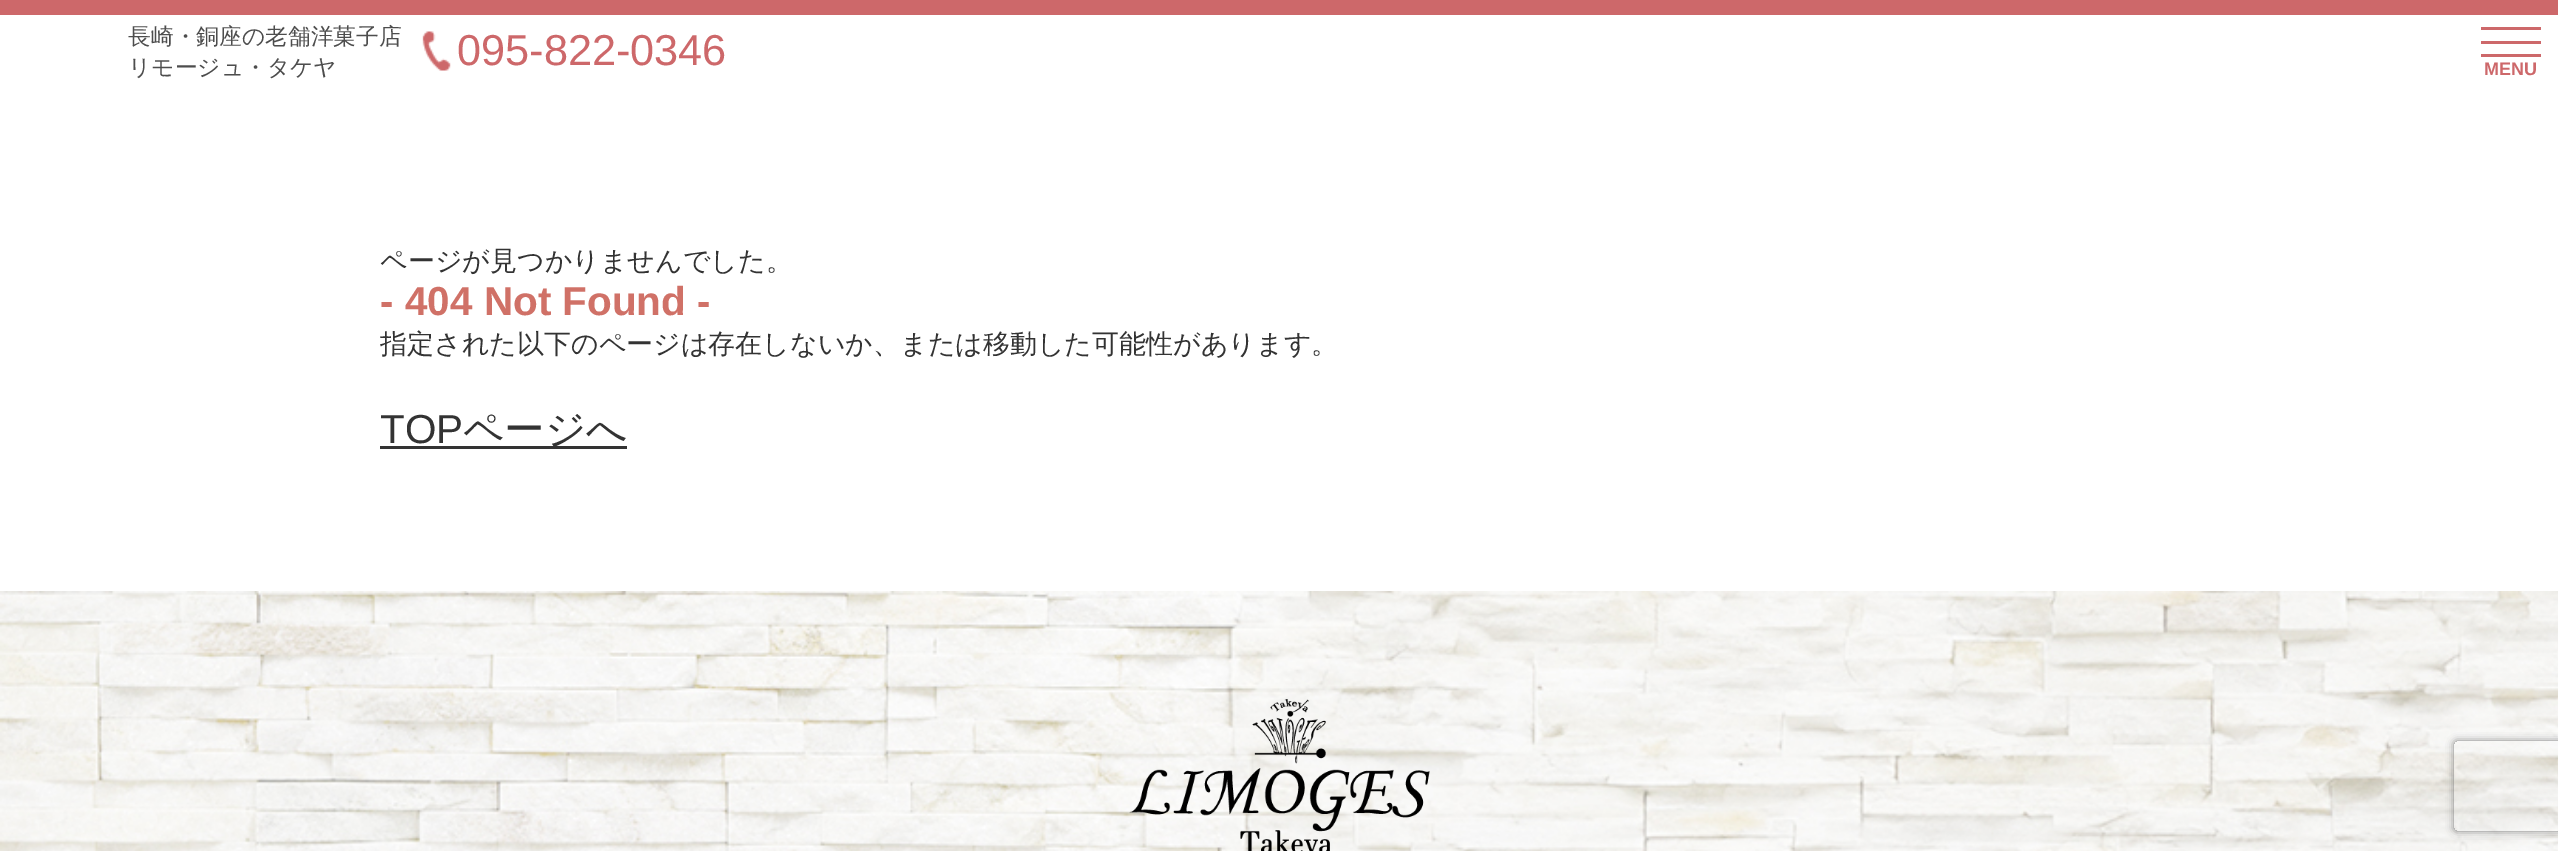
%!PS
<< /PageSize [2558 851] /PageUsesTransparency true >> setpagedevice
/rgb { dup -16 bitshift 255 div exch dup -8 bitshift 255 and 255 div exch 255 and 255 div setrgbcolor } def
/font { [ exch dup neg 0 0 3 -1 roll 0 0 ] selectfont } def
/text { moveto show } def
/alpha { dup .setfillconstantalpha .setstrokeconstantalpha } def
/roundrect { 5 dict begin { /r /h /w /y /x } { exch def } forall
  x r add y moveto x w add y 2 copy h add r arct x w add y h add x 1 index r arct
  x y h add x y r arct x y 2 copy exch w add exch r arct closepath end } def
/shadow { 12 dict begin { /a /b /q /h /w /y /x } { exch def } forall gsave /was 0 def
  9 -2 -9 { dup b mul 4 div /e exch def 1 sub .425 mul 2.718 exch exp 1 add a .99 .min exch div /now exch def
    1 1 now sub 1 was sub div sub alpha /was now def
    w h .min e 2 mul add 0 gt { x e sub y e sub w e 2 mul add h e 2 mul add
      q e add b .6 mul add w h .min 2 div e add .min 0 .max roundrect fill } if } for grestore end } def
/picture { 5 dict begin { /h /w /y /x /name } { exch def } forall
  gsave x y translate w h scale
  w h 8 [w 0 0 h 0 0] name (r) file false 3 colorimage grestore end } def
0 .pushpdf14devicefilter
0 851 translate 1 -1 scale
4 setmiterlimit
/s1 { /WenQuanYiZenHei-Medium 22.75 font 16#4D4D4D rgb } def
/s2 { /LiberationSans-Regular 43.25 font 16#CD686A rgb } def
/s3 { /LiberationSans-Bold 18 font 16#CD686A rgb } def
/s4 { /WenQuanYiZenHei-Medium 27 font 16#333333 rgb } def
/s5 { /LiberationSans-Bold 40.5 font 16#D07167 rgb } def
/s6 { /LiberationSans-Regular 40.5 font 16#333333 rgb } def
/s7 { /WenQuanYiZenHei-Medium 40.5 font 16#333333 rgb } def
16#FFFFFF rgb
0 0 2558 851 rectfill
16#CD686A rgb
0 0 2558 15 rectfill
s1
(長崎・銅座の老舗洋菓子店) 128 44 text
(リモージュ・タケヤ) 128 75 text
(pic1.raw) 422 31 29 40 picture
s2
(095-822-0346) 457 65 text
2481 27 60 3 rectfill
2481 41 60 3 rectfill
2481 54 60 3 rectfill
s3
(MENU) 2484 75 text
s4
(ページが見つかりませんでした。) 380 270 text
s5
(- 404 Not Found -) 380 315 text
s4
(指定された以下のページは存在しないか、または移動した可能性があります。) 380 353 text
s6
(TOP) 380 443 text
380 446 247 3 rectfill
s7
(ページへ) 463 443 text
(pic2.raw) 0 591 2558 260 picture
(pic3.raw) 1129 699 301 152 picture
gsave
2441 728 moveto 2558 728 lineto 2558 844 lineto 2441 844 lineto closepath 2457 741 moveto 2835 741 lineto 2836.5 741 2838 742.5 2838 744 curveto 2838 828 lineto 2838 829.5 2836.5 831 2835 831 curveto 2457 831 lineto 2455.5 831 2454 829.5 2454 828 curveto 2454 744 lineto 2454 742.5 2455.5 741 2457 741 curveto closepath eoclip newpath
16#808080 rgb
2454 741 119 90 3 4 1 shadow
grestore
.poppdf14devicefilter showpage
